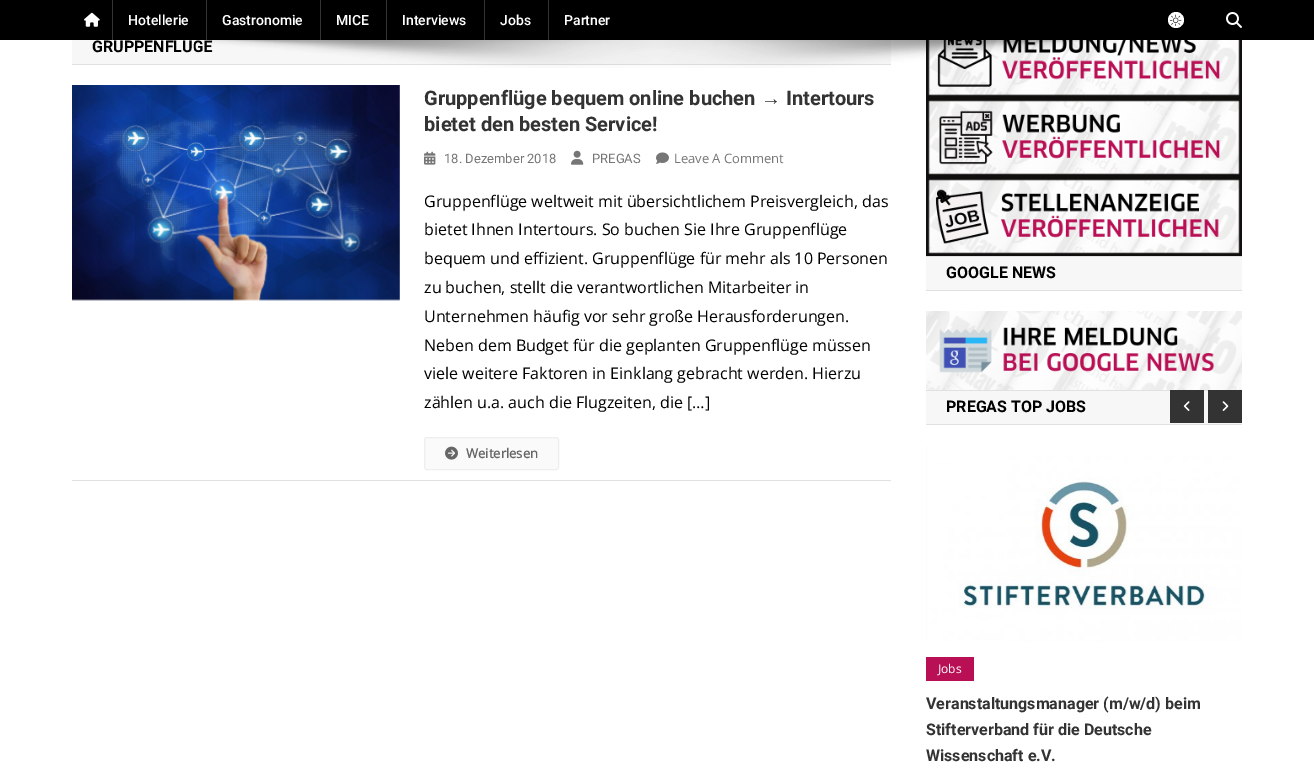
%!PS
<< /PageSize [1314 777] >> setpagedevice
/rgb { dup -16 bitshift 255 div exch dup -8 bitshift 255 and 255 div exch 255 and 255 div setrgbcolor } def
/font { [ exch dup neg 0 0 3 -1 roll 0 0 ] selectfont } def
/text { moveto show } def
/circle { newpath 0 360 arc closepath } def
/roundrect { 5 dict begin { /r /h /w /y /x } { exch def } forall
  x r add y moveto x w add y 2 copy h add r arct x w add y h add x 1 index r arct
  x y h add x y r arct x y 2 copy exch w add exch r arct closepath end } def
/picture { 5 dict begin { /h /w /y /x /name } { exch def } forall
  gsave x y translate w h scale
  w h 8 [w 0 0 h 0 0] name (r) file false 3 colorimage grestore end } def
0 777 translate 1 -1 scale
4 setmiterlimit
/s1 { /Roboto-Bold 16 font 16#000000 rgb } def
/s2 { /Roboto-Medium 14 font 16#FFFFFF rgb } def
/s3 { /Roboto-Bold 20 font 16#333333 rgb } def
/s4 { /LiberationSerif-Bold 20 font 16#333333 rgb } def
/s5 { /Roboto-Regular 13 font 16#767676 rgb } def
/s6 { /OpenSans-Regular 13 font 16#767676 rgb } def
/s7 { /OpenSans-Regular 16 font 16#000000 rgb } def
/s8 { /OpenSans-Bold 13 font 16#666666 rgb } def
/s9 { /OpenSans-Regular 12 font 16#FFFFFF rgb } def
/s10 { /Roboto-Bold 16 font 16#333333 rgb } def
16#FFFFFF rgb
0 0 1314 777 rectfill
16#000000 rgb
0 0 1314 40 rectfill
(pic1.raw) 84 12 16 15 picture
16#F7F7F7 rgb
72 40 819 24 rectfill
s1
(GRUPPENFLÜGE) 92 52 text
16#333333 rgb
112 0 1 40 rectfill
s2
(Hotellerie) 128 25 text
16#333333 rgb
206 0 1 40 rectfill
s2
(Gastronomie) 222 25 text
16#333333 rgb
320 0 1 40 rectfill
s2
(MICE) 336 25 text
16#333333 rgb
386 0 1 40 rectfill
s2
(Interviews) 402 25 text
16#333333 rgb
484 0 1 40 rectfill
s2
(Jobs) 500 25 text
16#333333 rgb
548 0 1 40 rectfill
s2
(Partner) 564 25 text
1176 20 8 circle fill
(pic2.raw) 1170 14 12 12 picture
(pic3.raw) 1226 12 16 16 picture
16#E1E1E1 rgb
72 64 819 1 rectfill
(pic10.raw) 926 40 316 58 picture
(pic4.raw) 194 40 925 28 picture
(pic5.raw) 72 85 328 216 picture
s3
(Gruppenflüge bequem online buchen) 424 105 text
s4
(→) 761 105 text
s3
(Intertours) 786 105 text
(bietet den besten Service!) 424 131 text
(pic6.raw) 424 151 12 14 picture
s5
(18. Dezember 2018) 444 163 text
(pic7.raw) 571 150 13 15 picture
(PREGAS) 592 163 text
(pic8.raw) 656 152 13 12 picture
s6
(Leave A Comment) 674 163 text
s7
(Gruppenflüge weltweit mit übersichtlichem Preisvergleich, das) 424 207 text
(bietet Ihnen Intertours. So buchen Sie Ihre Gruppenflüge) 424 235 text
(bequem und effizient. Gruppenflüge für mehr als 10 Personen) 424 264 text
(zu buchen, stellt die verantwortlichen Mitarbeiter in) 424 293 text
(Unternehmen häufig vor sehr große Herausforderungen.) 424 322 text
(Neben dem Budget für die geplanten Gruppenflüge müssen) 424 351 text
(viele weitere Faktoren in Einklang gebracht werden. Hierzu) 424 379 text
(zählen u.a. auch die Flugzeiten, die […]) 424 408 text
16#FAFAFA rgb
424.5 437.5 134 32 2.5 roundrect gsave fill grestore
16#EEEEEE rgb
stroke
(pic9.raw) 445 446 13 14 picture
s8
(Weiterlesen) 466 458 text
16#E1E1E1 rgb
72 480 819 1 rectfill
(pic11.raw) 926 98 316 79 picture
(pic12.raw) 926 177 316 79 picture
16#F7F7F7 rgb
926 257 316 33 rectfill
16#E1E1E1 rgb
926 256 316 1 rectfill
926 290 316 1 rectfill
s1
(GOOGLE NEWS) 946 278 text
(pic13.raw) 926 311 316 79 picture
16#F7F7F7 rgb
926 391 316 33 rectfill
16#E1E1E1 rgb
926 390 282 1 rectfill
926 424 316 1 rectfill
s1
(PREGAS TOP JOBS) 946 412 text
16#333333 rgb
1170 390 34 33 rectfill
(pic14.raw) 1183 401 7 10 picture
1208 390 34 33 rectfill
(pic15.raw) 1222 401 7 10 picture
(pic16.raw) 926 445 316 197 picture
16#B91055 rgb
926 657 48 24 rectfill
s9
(Jobs) 938 673 text
s10
(Veranstaltungsmanager \(m/w/d\) beim) 926 709 text
(Stifterverband für die Deutsche) 926 735 text
(Wissenschaft e.V.) 926 761 text
showpage
